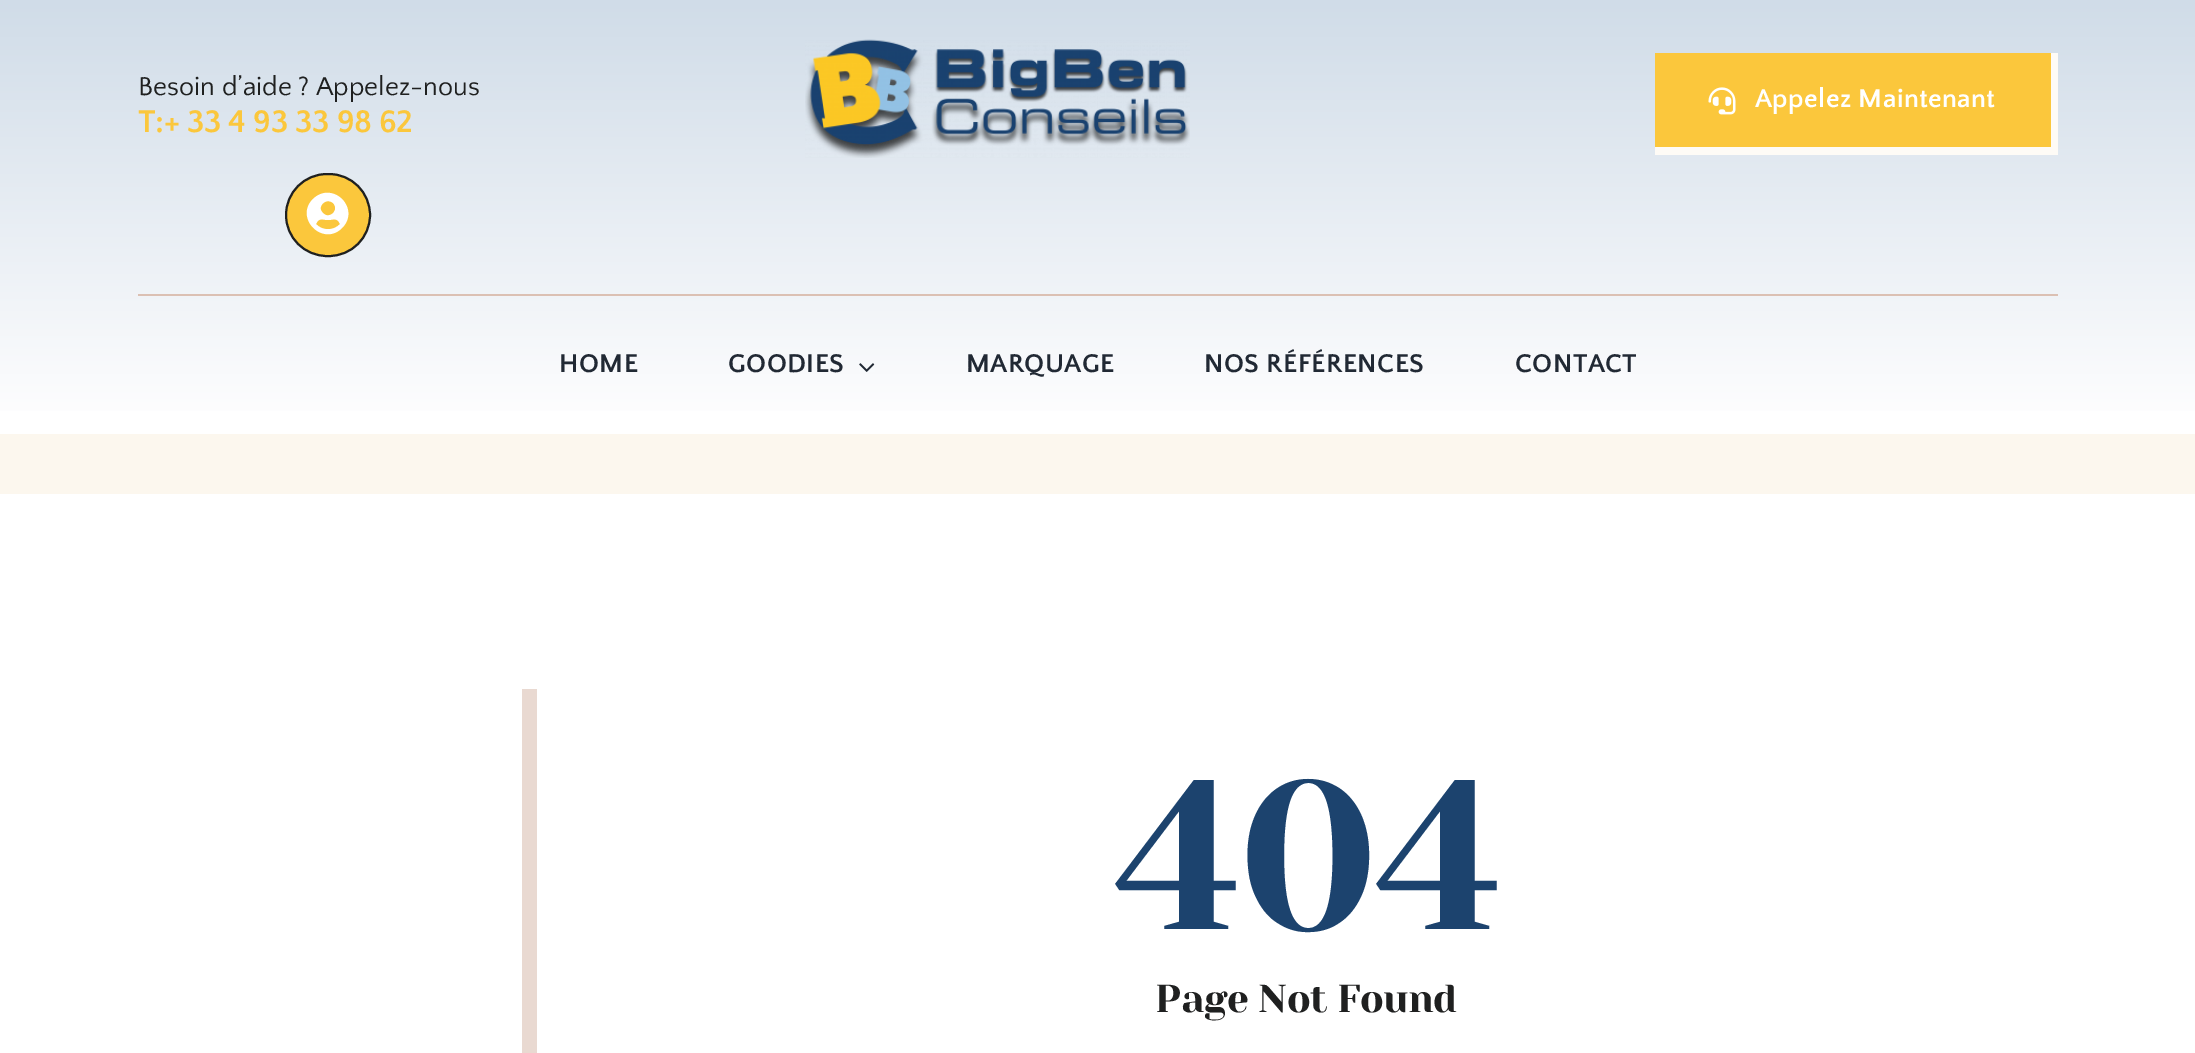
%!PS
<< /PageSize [2195 1053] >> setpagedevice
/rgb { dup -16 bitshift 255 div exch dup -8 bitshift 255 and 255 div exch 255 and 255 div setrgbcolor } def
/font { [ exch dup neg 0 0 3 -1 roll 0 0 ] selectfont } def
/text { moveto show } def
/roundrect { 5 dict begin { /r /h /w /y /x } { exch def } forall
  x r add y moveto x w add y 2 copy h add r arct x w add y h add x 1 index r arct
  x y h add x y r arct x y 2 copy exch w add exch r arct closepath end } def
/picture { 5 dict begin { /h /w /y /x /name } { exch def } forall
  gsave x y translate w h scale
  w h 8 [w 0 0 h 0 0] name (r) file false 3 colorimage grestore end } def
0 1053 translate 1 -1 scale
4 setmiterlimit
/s1 { /QuattrocentoSans-Regular 27 font 16#1F2020 rgb } def
16#FFFFFF rgb
0 0 2195 1053 rectfill
gsave 0 0 moveto 2195 0 lineto 2195 411 lineto 0 411 lineto closepath clip newpath
<< /ShadingType 2 /ColorSpace /DeviceRGB /Coords [1098 0 1098 434] /Extend [true true] /Function << /FunctionType 2 /Domain [0 1] /C0 [0.816 0.863 0.91] /C1 [1 1 1] /N 1 >> >> shfill grestore
s1
(Besoin d’aide ? Appelez-nous) 138 95 text
/QuattrocentoSans-Bold 33 font
16#FBC73C rgb
138 132 moveto -0.5 0 (T:+ 33 4 93 33 98 62) ashow
(pic1.raw) 805 39 385 119 picture
1655 53 396 94 rectfill
16#FEFBF6 rgb
2051 53 7 102 rectfill
1655 147 403 8 rectfill
(pic2.raw) 1708 87 28 28 picture
/QuattrocentoSans-Bold 27 font
16#FFFFFF rgb
1755 107 moveto 0.4 0 (Appelez Maintenant) ashow
16#FBC73C rgb
286 174 84 82 41 roundrect gsave fill grestore
16#1F2020 rgb
2 setlinewidth
stroke
16#FFFFFF rgb
313 199 moveto 333 180 361 209 342 228 curveto 323 247 294 218 313 199 curveto closepath 333 203 moveto 326 197 316 207 323 213 curveto 329 220 340 210 333 203 curveto closepath 316 224 moveto 322 231 334 231 340 224 curveto 337 217 333 220 328 220 curveto 323 220 319 217 316 224 curveto closepath fill
16#DBC0B3 rgb
138 294 1920 2 rectfill
16#212934 rgb
559 372 moveto 0.4 0 (HOME) ashow
728 372 moveto 0.4 0 (GOODIES) ashow
(pic3.raw) 859 363 16 9 picture
966 372 moveto 0.4 0 (MARQUAGE) ashow
1204 372 moveto 0.4 0 (NOS RÉFÉRENCES) ashow
1515 372 moveto 0.4 0 (CONTACT) ashow
16#FCF7EE rgb
0 434 2195 60 rectfill
16#E9D9D1 rgb
522 689 moveto 522 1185 lineto 1644 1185 lineto 1644 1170 lineto 537 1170 lineto 537 689 lineto closepath fill
/YesevaOne-Regular 210 font
16#1C436E rgb
1115 929 moveto -3 0 (404) ashow
/YesevaOne-Regular 39 font
16#1F2020 rgb
1155 1012 moveto -0.6 0 (Page Not Found) ashow
showpage
